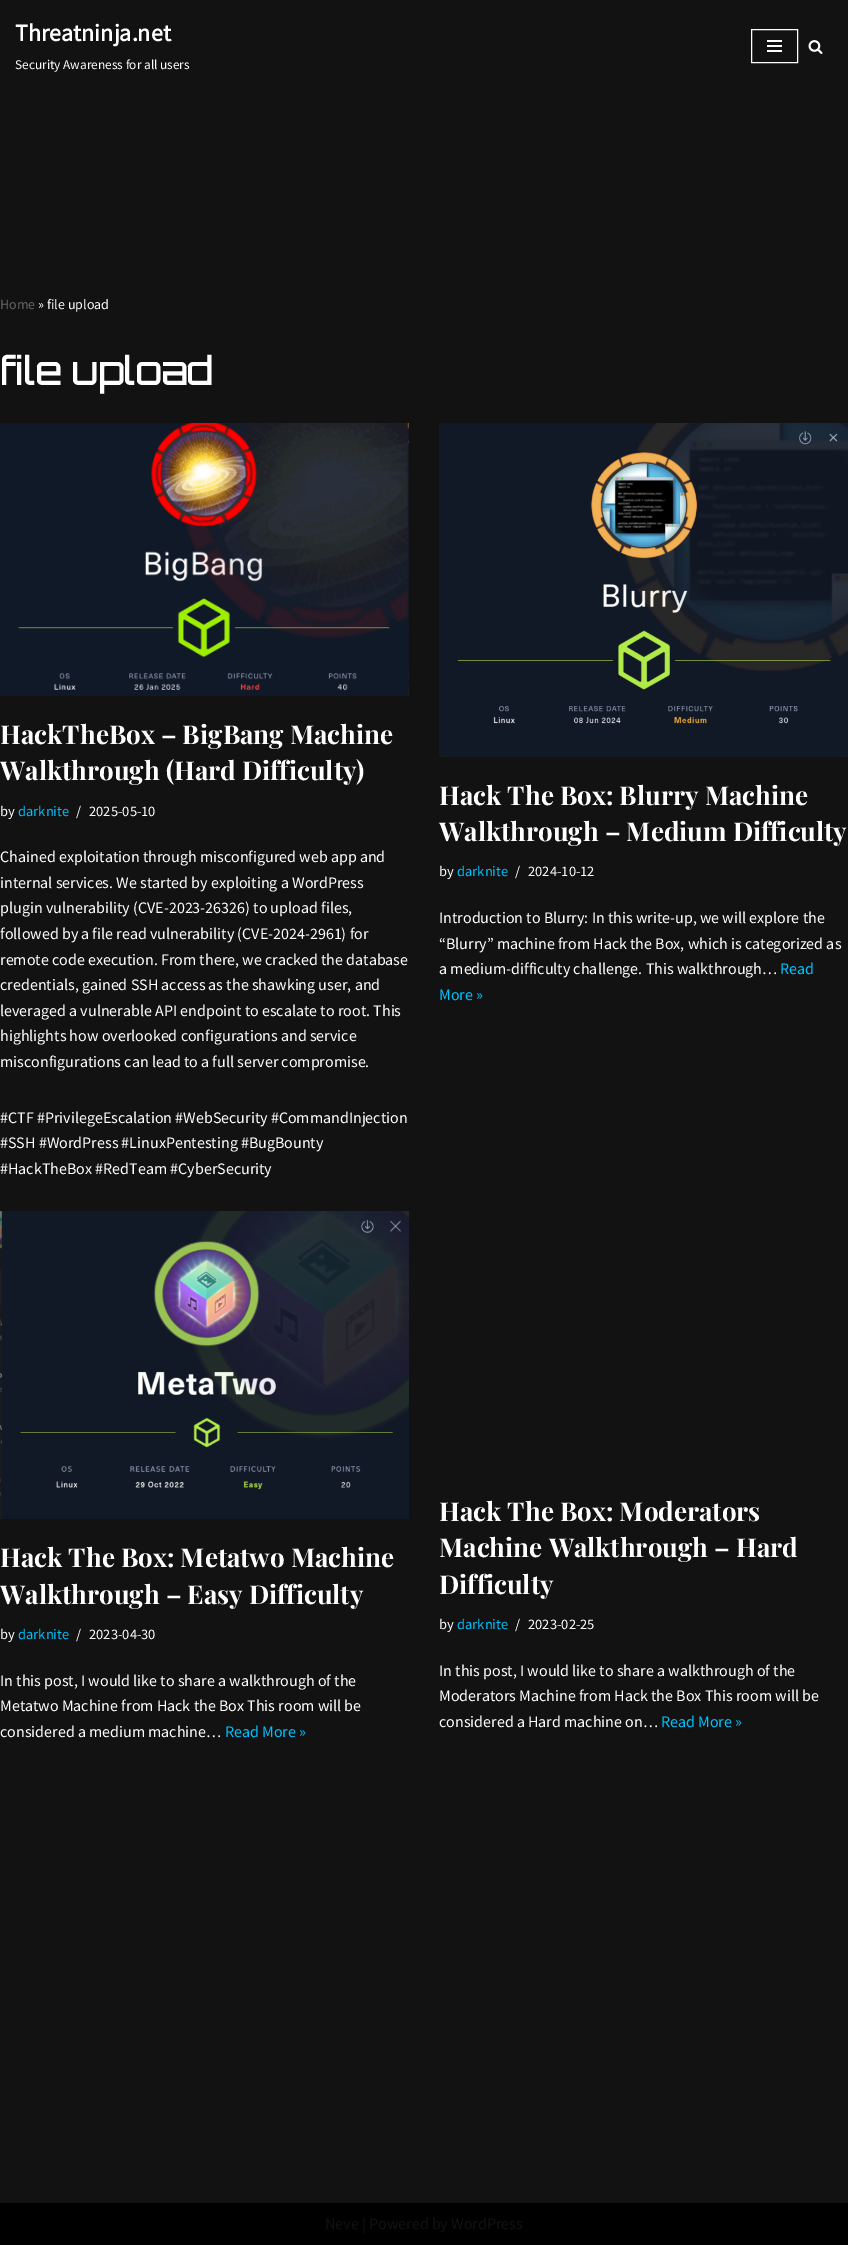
%!PS
<< /PageSize [848 2245] >> setpagedevice
/rgb { dup -16 bitshift 255 div exch dup -8 bitshift 255 and 255 div exch 255 and 255 div setrgbcolor } def
/font { [ exch dup neg 0 0 3 -1 roll 0 0 ] selectfont } def
/text { moveto show } def
/picture { 5 dict begin { /h /w /y /x /name } { exch def } forall
  gsave x y translate w h scale
  w h 8 [w 0 0 h 0 0] name (r) file false 3 colorimage grestore end } def
0 2245 translate 1 -1 scale
4 setmiterlimit
/s1 { /SourceSansPro-Bold 24 font 16#FFFFFF rgb } def
/s2 { /SourceSansPro-Regular 13.3 font 16#FFFFFF rgb } def
/s3 { /SourceSansPro-Regular 14 font 16#676767 rgb } def
/s4 { /SourceSansPro-Regular 14 font 16#FFFFFF rgb } def
/s5 { /Orbitron-Bold 38 font 16#FFFFFF rgb } def
/s6 { /PlayfairDisplay-Bold 26 font 16#FFFFFF rgb } def
/s7 { /SourceSansPro-Regular 14.5 font 16#FFFFFF rgb } def
/s8 { /SourceSansPro-Regular 14.5 font 16#00C2FF rgb } def
/s9 { /SourceSansPro-Regular 16 font 16#FFFFFF rgb } def
/s10 { /SourceSansPro-Regular 16 font 16#00C2FF rgb } def
/s11 { /SourceSansPro-Regular 16 font 16#121212 rgb } def
16#121212 rgb
0 0 848 2245 rectfill
s1
(Threatninja.net) 15 41 text
s2
(Security Awareness for all users) 15 69 text
751.5 29.5 46 33 rectstroke
767 40 15 2 rectfill
767 45 15 2 rectfill
767 50 15 2 rectfill
(pic1.raw) 808 40 15 14 picture
s3
(Home) 0 309 text
s4
(» file upload) 38 309 text
s5
(file upload) 0 385 text
(pic2.raw) 0 423 409 273 picture
s6
(HackTheBox – BigBang Machine) 0 744 text
(Walkthrough \(Hard Difficulty\)) 0 780 text
s7
(by) 0 816 text
s8
(darknite) 18 816 text
s7
(/) 76 816 text
(2025-05-10) 89 816 text
s9
(Chained exploitation through misconfigured web app and) 0 862 text
(internal services. We started by exploiting a WordPress) 0 888 text
(plugin vulnerability \(CVE-2023-26326\) to upload files,) 0 913 text
(followed by a file read vulnerability \(CVE-2024-2961\) for) 0 939 text
(remote code execution. From there, we cracked the database) 0 965 text
(credentials, gained SSH access as the shawking user, and) 0 990 text
(leveraged a vulnerable API endpoint to escalate to root. This) 0 1016 text
(highlights how overlooked configurations and service) 0 1041 text
(misconfigurations can lead to a full server compromise.) 0 1067 text
(#CTF #PrivilegeEscalation #WebSecurity #CommandInjection) 0 1123 text
(#SSH #WordPress #LinuxPentesting #BugBounty) 0 1148 text
(#HackTheBox #RedTeam #CyberSecurity) 0 1174 text
(pic3.raw) 439 423 409 334 picture
s6
(Hack The Box: Blurry Machine) 439 805 text
(Walkthrough – Medium Difficulty) 439 841 text
s7
(by) 439 876 text
s8
(darknite) 457 876 text
s7
(/) 515 876 text
(2024-10-12) 528 876 text
s9
(Introduction to Blurry: In this write-up, we will explore the) 439 923 text
(“Blurry” machine from Hack the Box, which is categorized as) 439 949 text
(a medium-difficulty challenge. This walkthrough…) 439 974 text
s10
(Read) 780 974 text
(More ») 439 1000 text
(pic4.raw) 0 1211 409 308 picture
s6
(Hack The Box: Metatwo Machine) 0 1567 text
(Walkthrough – Easy Difficulty) 0 1604 text
s7
(by) 0 1639 text
s8
(darknite) 18 1639 text
s7
(/) 76 1639 text
(2023-04-30) 89 1639 text
s9
(In this post, I would like to share a walkthrough of the) 0 1686 text
(Metatwo Machine from Hack the Box This room will be) 0 1711 text
(considered a medium machine…) 0 1737 text
s10
(Read More ») 225 1737 text
s6
(Hack The Box: Moderators) 439 1521 text
(Machine Walkthrough – Hard) 439 1557 text
(Difficulty) 439 1594 text
s7
(by) 439 1629 text
s8
(darknite) 457 1629 text
s7
(/) 515 1629 text
(2023-02-25) 528 1629 text
s9
(In this post, I would like to share a walkthrough of the) 439 1676 text
(Moderators Machine from Hack the Box This room will be) 439 1701 text
(considered a Hard machine on…) 439 1727 text
s10
(Read More ») 661 1727 text
16#000000 rgb
0 2203 848 42 rectfill
s11
(Neve | Powered by WordPress) 325 2229 text
showpage
